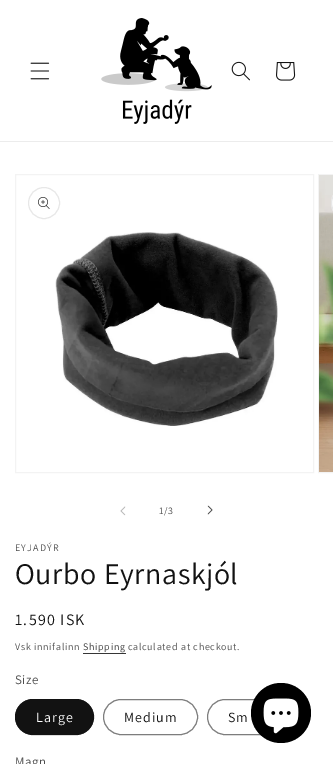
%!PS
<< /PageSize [333 764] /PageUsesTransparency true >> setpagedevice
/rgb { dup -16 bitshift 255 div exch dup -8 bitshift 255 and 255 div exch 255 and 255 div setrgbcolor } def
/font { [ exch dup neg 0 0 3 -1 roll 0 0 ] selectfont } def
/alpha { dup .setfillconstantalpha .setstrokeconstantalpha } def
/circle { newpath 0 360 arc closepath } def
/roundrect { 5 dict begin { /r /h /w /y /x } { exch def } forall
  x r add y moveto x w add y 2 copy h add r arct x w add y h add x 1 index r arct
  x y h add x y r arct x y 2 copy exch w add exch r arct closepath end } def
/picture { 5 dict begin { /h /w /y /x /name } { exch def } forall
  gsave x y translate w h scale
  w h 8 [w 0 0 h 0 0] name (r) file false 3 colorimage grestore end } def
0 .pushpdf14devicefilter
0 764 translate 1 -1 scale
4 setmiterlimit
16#FFFFFF rgb
0 0 333 764 rectfill
16#ECECEC rgb
0 141 333 1 rectfill
(pic1.raw) 30 62 20 18 picture
(pic2.raw) 101 18 111 106 picture
(pic3.raw) 231 61 19 20 picture
(pic4.raw) 276 62 20 19 picture
16#F3F3F3 rgb
15.5 174.5 298 298 rectstroke
16#E7E7E7 rgb
44 203 15.5 circle stroke
(pic5.raw) 38 197 12 12 picture
(pic6.raw) 55 232 223 194 picture
16#F3F3F3 rgb
318.5 174.5 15 298 rectstroke
(pic7.raw) 319 175 14 297 picture
16#FFFFFF rgb
347 187 moveto 333 187 lineto 333 219 lineto 347 219 lineto 338 219 331 212 331 203 curveto 331 194 338 187 347 187 curveto closepath fill
0.1 alpha
16#121212 rgb
331.5 187.5 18 31 15.5 roundrect stroke
1 alpha
(pic8.raw) 120 506 6 10 picture
/Assistant-Regular 10 font
16#4D4D4D rgb
159 514 moveto 0.7 0 (1/3) ashow
(pic9.raw) 207 505 6 10 picture
15 551 moveto 1.25 0 (EYJADÝR) ashow
/Assistant-Regular 30 font
16#121212 rgb
15 584 moveto 0.6 0 (Ourbo Eyrnaskjól) ashow
/Assistant-Regular 16 font
15 625 moveto 1.25 0 (1.590 ISK) ashow
/Assistant-Regular 10 font
16#4D4D4D rgb
15 650 moveto 0.7 0 (Vsk innifalinn) ashow
16#363636 rgb
83 650 moveto 0.7 0 (Shipping) ashow
83 653 43 1 rectfill
16#4D4D4D rgb
128 650 moveto 0.7 0 (calculated at checkout.) ashow
/Assistant-Regular 13 font
15 684 moveto 0.5 0 (Size) ashow
16#121212 rgb
15 699 79 36 18 roundrect fill
0.55 alpha
15.5 699.5 78 35 17.5 roundrect stroke
/Assistant-Regular 14 font
1 alpha
16#FFFFFF rgb
36 722 moveto 1 0 (Large) ashow
16#7D7D7D rgb
103.5 699.5 94 35 17.5 roundrect stroke
16#121212 rgb
124 722 moveto 1 0 (Medium) ashow
16#7D7D7D rgb
207.5 699.5 79 35 17.5 roundrect stroke
16#121212 rgb
228 722 moveto 1 0 (Sm) ashow
/Assistant-Regular 13 font
16#4D4D4D rgb
15 766 moveto 0.5 0 (Magn) ashow
16#000000 rgb
281 713 30 circle fill
(pic10.raw) 263 698 36 36 picture
.poppdf14devicefilter showpage
